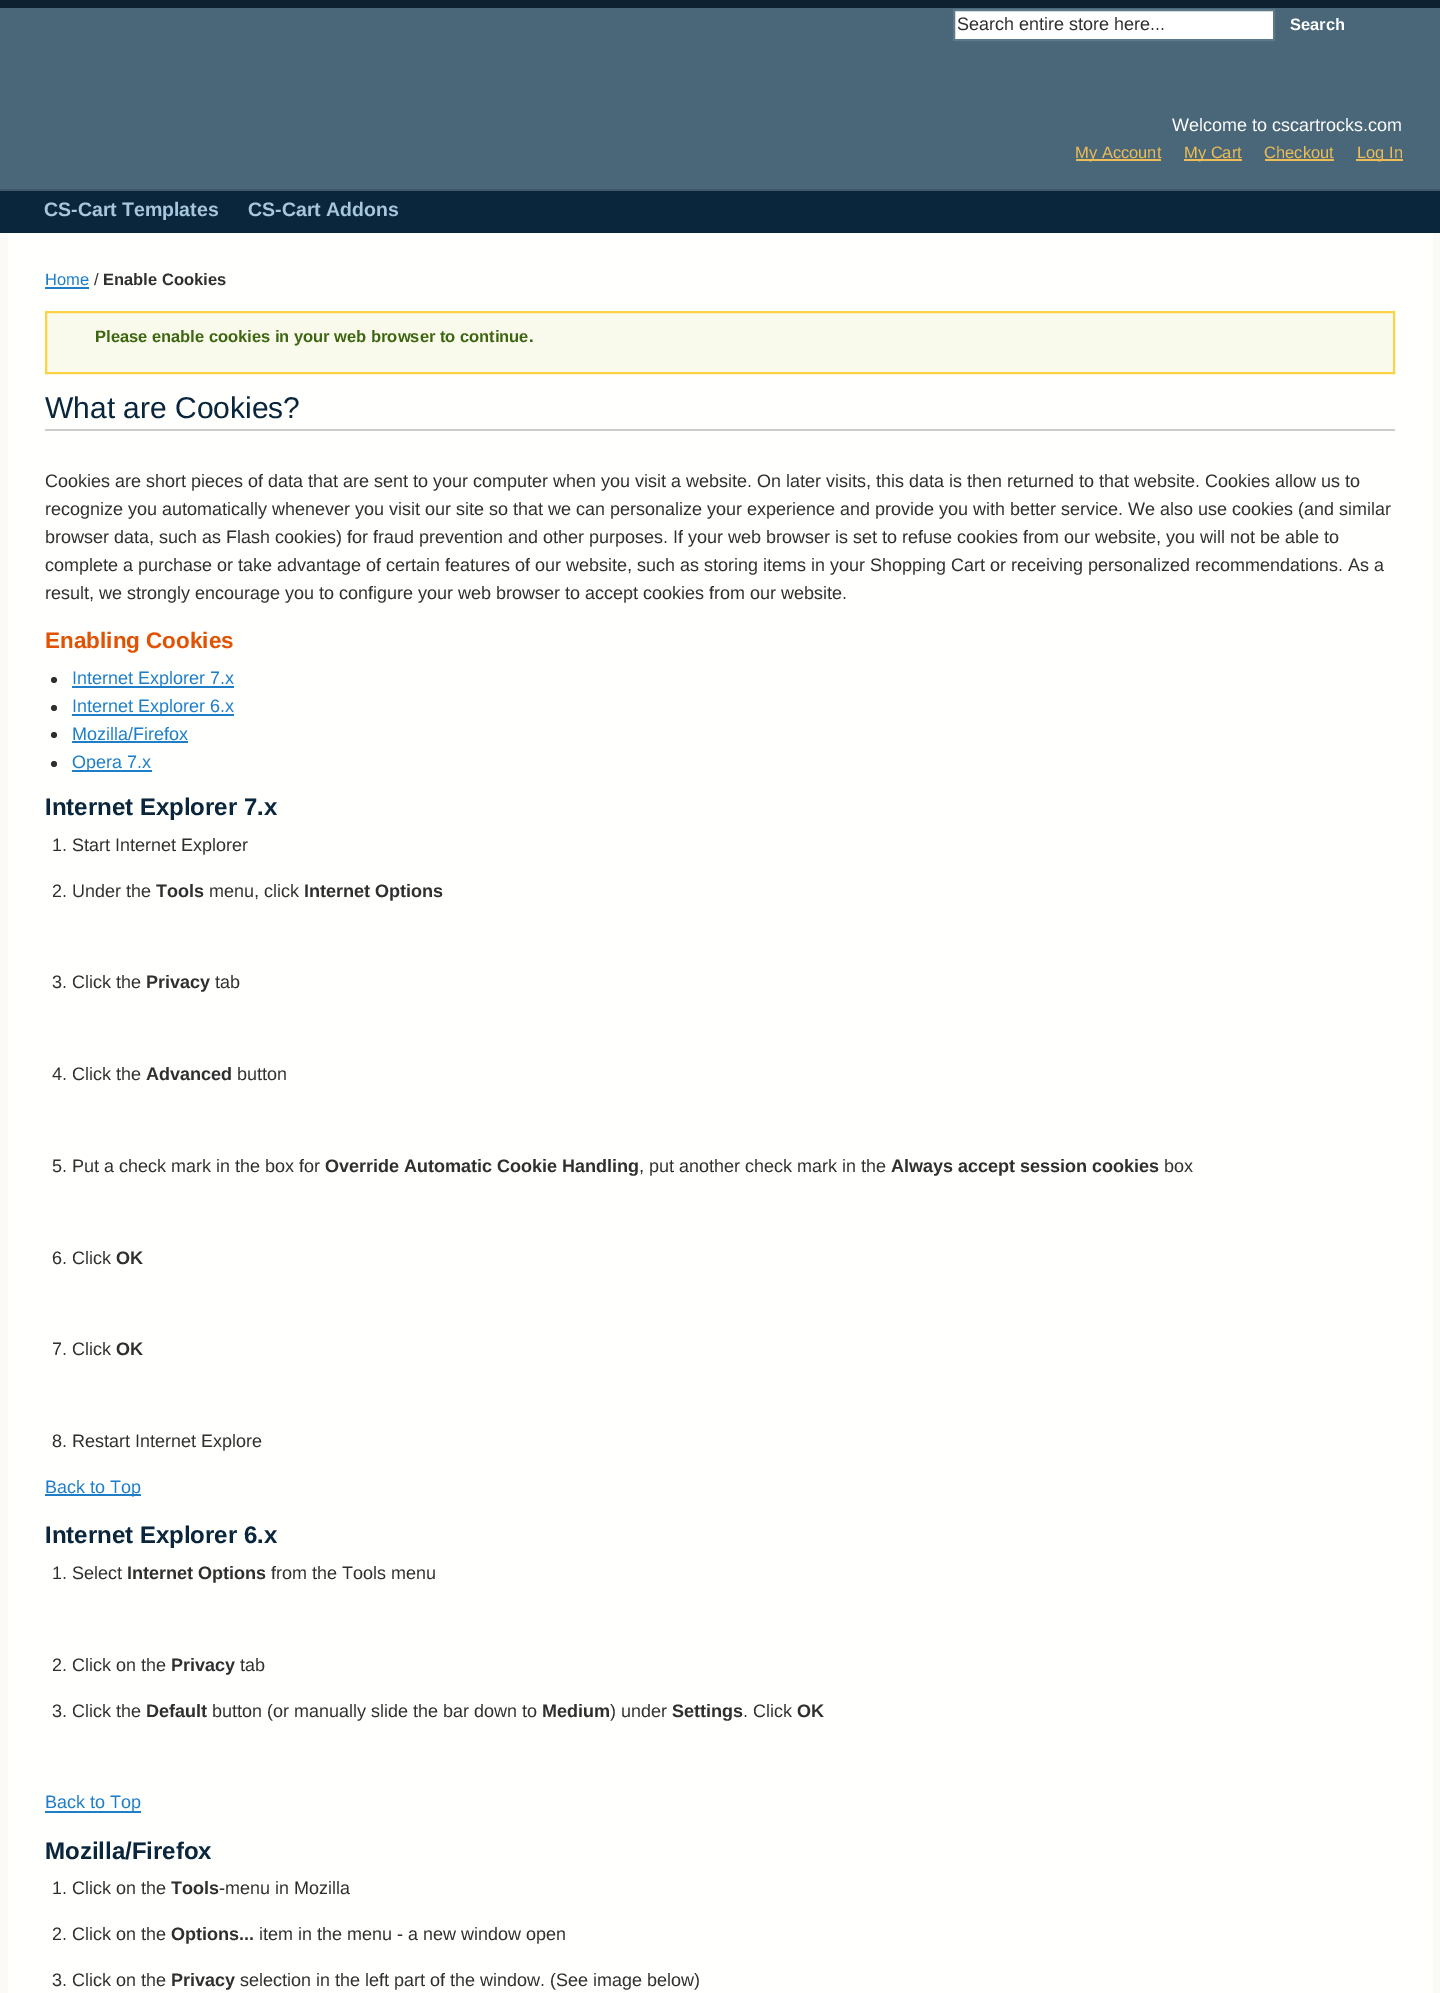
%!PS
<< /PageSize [1440 1993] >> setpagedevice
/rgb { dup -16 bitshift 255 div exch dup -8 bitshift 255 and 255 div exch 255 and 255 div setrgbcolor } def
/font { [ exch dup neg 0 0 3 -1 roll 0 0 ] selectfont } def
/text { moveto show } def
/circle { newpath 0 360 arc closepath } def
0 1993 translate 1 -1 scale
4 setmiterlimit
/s1 { /LiberationSans-Regular 18 font 16#2F2F2F rgb } def
/s2 { /LiberationSans-Bold 16.5 font 16#FFFFFF rgb } def
/s3 { /LiberationSans-Regular 18 font 16#FFFFFF rgb } def
/s4 { /LiberationSans-Regular 16.5 font 16#EBBC58 rgb } def
/s5 { /LiberationSans-Bold 19.5 font 16#A7C6DD rgb } def
/s6 { /LiberationSans-Regular 16.5 font 16#1E7EC8 rgb } def
/s7 { /LiberationSans-Regular 16.5 font 16#2F2F2F rgb } def
/s8 { /LiberationSans-Bold 16.5 font 16#2F2F2F rgb } def
/s9 { /LiberationSans-Bold 16.5 font 16#3D6611 rgb } def
/s10 { /LiberationSans-Regular 30 font 16#0A263C rgb } def
/s11 { /LiberationSans-Bold 22.5 font 16#E25203 rgb } def
/s12 { /LiberationSans-Regular 18 font 16#1E7EC8 rgb } def
/s13 { /LiberationSans-Bold 24 font 16#0A263C rgb } def
/s14 { /LiberationSans-Bold 18 font 16#2F2F2F rgb } def
16#496778 rgb
0 0 1440 1993 rectfill
16#0D2131 rgb
0 0 1440 8 rectfill
16#415966 rgb
0 189 1440 2 rectfill
16#FFFFFF rgb
954 10 moveto 1274 10 lineto 1274 40 lineto 954 40 lineto closepath gsave fill grestore
16#5C7989 rgb
2 setlinewidth
stroke
s1
(Search entire store here...) 957 30 text
s2
(Search) 1290 30 text
s3
(Welcome to cscartrocks.com) 1172 131 text
16#EBBC58 rgb
1076 159 85 2 rectfill
s4
(My Account) 1075 158 text
1184 159 58 2 rectfill
(My Cart) 1184 158 text
(Checkout) 1264 158 text
1265 159 69 2 rectfill
1356 159 47 2 rectfill
(Log In) 1357 158 text
16#0A263D rgb
0 191 1440 42 rectfill
s5
(CS-Cart Templates) 44 216 text
(CS-Cart Addons) 248 216 text
16#FBFAF6 rgb
0 233 1440 1760 rectfill
16#FFFFFE rgb
8 233 1425 1760 rectfill
s6
(Home) 45 285 text
45 287 44 2 rectfill
s7
(/) 94 285 text
s8
(Enable Cookies) 103 285 text
16#FAFAEC rgb
46 312 moveto 1394 312 lineto 1394 373 lineto 46 373 lineto closepath gsave fill grestore
16#FCD344 rgb
stroke
s9
(Please enable cookies in your web browser to continue.) 95 342 text
16#CCCCCC rgb
45 429 1350 2 rectfill
s10
(What are Cookies?) 45 418 text
s1
(Cookies are short pieces of data that are sent to your computer when you visit a website. On later visits, this data is then returned to that website. Cookies allow us to) 45 487 text
(recognize you automatically whenever you visit our site so that we can personalize your experience and provide you with better service. We also use cookies \(and similar) 45 515 text
(browser data, such as Flash cookies\) for fraud prevention and other purposes. If your web browser is set to refuse cookies from our website, you will not be able to) 45 543 text
(complete a purchase or take advantage of certain features of our website, such as storing items in your Shopping Cart or receiving personalized recommendations. As a) 45 571 text
(result, we strongly encourage you to configure your web browser to accept cookies from our website.) 45 599 text
s11
(Enabling Cookies) 45 648 text
16#2F2F2F rgb
54 680 3 circle fill
16#1E7EC8 rgb
72 686 162 2 rectfill
s12
(Internet Explorer 7.x) 72 684 text
16#2F2F2F rgb
54 708 3 circle fill
16#1E7EC8 rgb
72 714 162 2 rectfill
(Internet Explorer 6.x) 72 712 text
16#2F2F2F rgb
54 735 3 circle fill
s12
(Mozilla/Firefox) 72 740 text
72 741 116 2 rectfill
16#2F2F2F rgb
54 764 3 circle fill
16#1E7EC8 rgb
72 770 80 2 rectfill
(Opera 7.x) 72 768 text
s13
(Internet Explorer 7.x) 45 815 text
s1
(1. Start Internet Explorer) 52 851 text
(2. Under the) 52 897 text
s14
(Tools) 156 897 text
s1
(menu, click) 209 897 text
s14
(Internet Options) 304 897 text
s1
(3. Click the) 52 988 text
s14
(Privacy) 146 988 text
s1
(tab) 215 988 text
(4. Click the) 52 1080 text
s14
(Advanced) 146 1080 text
s1
(button) 237 1080 text
(5. Put a check mark in the box for) 52 1172 text
s14
(Override Automatic Cookie Handling) 325 1172 text
s1
(, put another check mark in the) 639 1172 text
s14
(Always accept session cookies) 891 1172 text
s1
(box) 1164 1172 text
(6. Click) 52 1264 text
s14
(OK) 116 1264 text
s1
(7. Click) 52 1355 text
s14
(OK) 116 1355 text
s1
(8. Restart Internet Explore) 52 1447 text
16#1E7EC8 rgb
45 1494 96 2 rectfill
(Back to Top) 45 1493 text
s13
(Internet Explorer 6.x) 45 1543 text
s1
(1. Select) 52 1579 text
s14
(Internet Options) 127 1579 text
s1
(from the Tools menu) 271 1579 text
(2. Click on the) 52 1671 text
s14
(Privacy) 171 1671 text
s1
(tab) 240 1671 text
(3. Click the) 52 1717 text
s14
(Default) 146 1717 text
s1
(button \(or manually slide the bar down to) 212 1717 text
s14
(Medium) 542 1717 text
s1
(\) under) 610 1717 text
s14
(Settings) 672 1717 text
s1
(. Click) 743 1717 text
s14
(OK) 797 1717 text
16#1E7EC8 rgb
45 1811 96 2 rectfill
s12
(Back to Top) 45 1808 text
s13
(Mozilla/Firefox) 45 1859 text
s1
(1. Click on the) 52 1894 text
s14
(Tools) 171 1894 text
s1
(-menu in Mozilla) 219 1894 text
(2. Click on the) 52 1940 text
s14
(Options...) 171 1940 text
s1
(item in the menu - a new window open) 259 1940 text
(3. Click on the) 52 1986 text
s14
(Privacy) 171 1986 text
s1
(selection in the left part of the window. \(See image below\)) 240 1986 text
showpage
